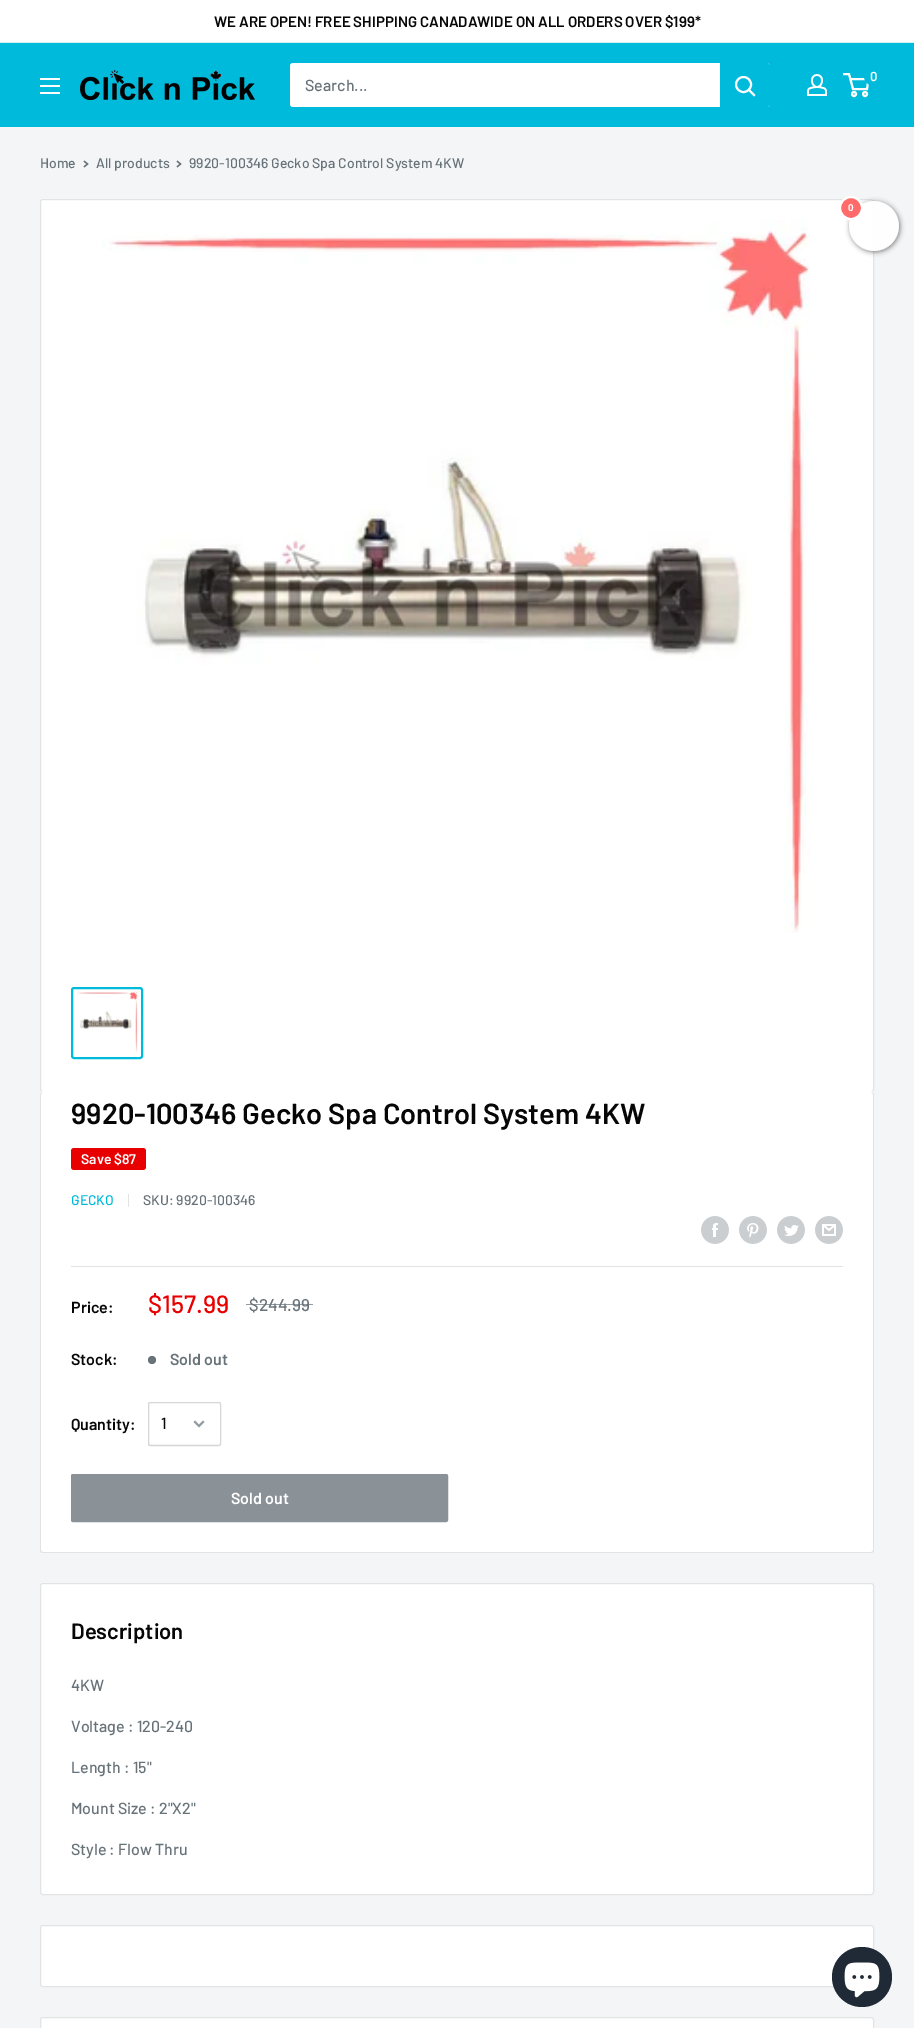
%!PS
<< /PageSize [914 2028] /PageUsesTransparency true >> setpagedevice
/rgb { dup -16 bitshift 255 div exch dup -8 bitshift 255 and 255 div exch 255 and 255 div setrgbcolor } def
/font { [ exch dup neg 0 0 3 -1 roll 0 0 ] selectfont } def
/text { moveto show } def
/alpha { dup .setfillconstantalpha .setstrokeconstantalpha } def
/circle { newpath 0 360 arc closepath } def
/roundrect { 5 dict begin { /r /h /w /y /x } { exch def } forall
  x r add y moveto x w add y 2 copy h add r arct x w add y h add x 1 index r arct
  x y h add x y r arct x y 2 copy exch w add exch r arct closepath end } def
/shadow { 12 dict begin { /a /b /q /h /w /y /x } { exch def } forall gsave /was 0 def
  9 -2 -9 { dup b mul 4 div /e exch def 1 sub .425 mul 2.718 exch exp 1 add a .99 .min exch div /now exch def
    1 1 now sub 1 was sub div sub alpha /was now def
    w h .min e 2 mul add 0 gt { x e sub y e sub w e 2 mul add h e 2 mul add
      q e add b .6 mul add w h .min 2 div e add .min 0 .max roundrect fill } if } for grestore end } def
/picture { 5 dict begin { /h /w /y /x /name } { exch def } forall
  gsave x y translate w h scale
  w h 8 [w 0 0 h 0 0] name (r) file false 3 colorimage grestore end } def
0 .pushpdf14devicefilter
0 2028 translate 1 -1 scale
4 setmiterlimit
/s1 { /Barlow-SemiBold 15 font 16#060606 rgb } def
/s2 { /Barlow-SemiBold 13 font 16#FFFFFF rgb } def
/s3 { /Barlow-Medium 16 font 16#677279 rgb } def
/s4 { /Barlow-Medium 14 font 16#677279 rgb } def
/s5 { /Barlow-SemiBold 29 font 16#060606 rgb } def
/s6 { /Barlow-SemiBold 14 font 16#FFFFFF rgb } def
/s7 { /Barlow-Medium 14 font 16#00BADB rgb } def
/s8 { /Barlow-SemiBold 16 font 16#060606 rgb } def
/s9 { /Barlow-Medium 25 font 16#E80000 rgb } def
/s10 { /Barlow-Medium 17 font 16#677279 rgb } def
/s11 { /Barlow-SemiBold 16 font 16#677279 rgb } def
/s12 { /Barlow-Medium 16 font 16#060606 rgb } def
/s13 { /Barlow-SemiBold 16 font 16#FFFFFF rgb } def
/s14 { /Barlow-SemiBold 22 font 16#060606 rgb } def
/s15 { /LiberationSans-Bold 10 font 16#FFFFFF rgb } def
16#F3F5F6 rgb
0 0 914 2028 rectfill
16#FFFFFF rgb
0 0 914 42 rectfill
16#D7F2F3 rgb
0 42 914 1 rectfill
s1
(WE ARE OPEN! FREE SHIPPING CANADAWIDE ON ALL ORDERS OVER $199*) 214 27 text
16#00BADB rgb
0 43 914 84 rectfill
(pic1.raw) 80 70 175 30 picture
(pic2.raw) 807 74 20 22 picture
16#FFFFFF rgb
2 setlinewidth
854 94 2 circle stroke
865 94 2 circle stroke
850.5 79 moveto 868.5 79 lineto 867 89 lineto 853 89 lineto 849 74 lineto 843 74 lineto stroke
16#00BADB rgb
874 76 10 circle fill
s2
(0) 870 81 text
(pic3.raw) 40 78 20 16 picture
290 63 480 44 3 roundrect fill
s3
(Search...) 305 91 text
16#00BADB rgb
720 63 moveto 767 63 lineto 768.5 63 770 64.5 770 66 curveto 770 104 lineto 770 105.5 768.5 107 767 107 curveto 720 107 lineto closepath fill
16#FFFFFF rgb
2 setlinecap
754 95 moveto 749 90 lineto stroke
0 setlinecap
743.5 84.5 7.5 circle stroke
s4
(Home) 40 168 text
1.3 setlinewidth
2 setlinecap
84.5 161.5 moveto 87.5 164 lineto 84.5 166.5 lineto stroke
(All products) 96 168 text
177.5 161.5 moveto 180.5 164 lineto 177.5 166.5 lineto stroke
(9920-100346 Gecko Spa Control System 4KW) 189 168 text
16#FFFFFF rgb
40.5 199.5 833 892 2.5 roundrect gsave fill grestore
16#E1E3E4 rgb
1 setlinewidth
0 setlinecap
stroke
(pic4.raw) 101 220 709 713 picture
16#00BADB rgb
2 setlinewidth
72 988 70 70 2 roundrect stroke
(pic5.raw) 77 991 61 61 picture
16#FFFFFF rgb
43 1091 moveto 41 1091 40 1093 40 1095 curveto 40 1093 41 1092 43 1092 curveto 871 1092 lineto 873 1092 874 1093 874 1095 curveto 874 1093 873 1091 871 1091 curveto closepath fill
40 1092 834 461 3 roundrect fill
16#E1E3E4 rgb
43 1092 moveto 871 1092 lineto 873 1092 874 1093 874 1095 curveto 874 1550 lineto 874 1552 873 1553 871 1553 curveto 43 1553 lineto 41 1553 40 1552 40 1550 curveto 40 1095 lineto 40 1093 41 1092 43 1092 curveto closepath 43 1092 moveto 871 1092 lineto 872 1092 873 1093 873 1095 curveto 873 1550 lineto 873 1551 872 1552 871 1552 curveto 43 1552 lineto 42 1552 41 1551 41 1550 curveto 41 1095 lineto 41 1093 42 1092 43 1092 curveto closepath eofill
s5
(9920-100346 Gecko Spa Control System 4KW) 71 1124 text
16#E80000 rgb
71 1148 75 22 3 roundrect fill
s6
(Save $87) 81 1164 text
s7
(GECKO) 71 1205 text
16#E1E3E4 rgb
128 1194 1 13 rectfill
s4
(SKU: 9920-100346) 143 1205 text
(pic6.raw) 701 1216 28 28 picture
(pic7.raw) 739 1216 28 28 picture
(pic8.raw) 777 1216 28 28 picture
(pic9.raw) 815 1216 28 28 picture
16#E1E3E4 rgb
71 1266 772 1 rectfill
s8
(Price:) 71 1313 text
s9
($157.99) 148 1313 text
s10
($244.99) 249 1311 text
0.7 alpha
246 1304 67 1 rectfill
1 alpha
s8
(Stock:) 71 1365 text
16#677279 rgb
152 1360 4 circle fill
(Sold out) 170 1365 text
s8
(Quantity:) 71 1430 text
16#F2F3F3 rgb
149 1443 moveto 149 1444 149 1445 150 1445 curveto 219 1445 lineto 220 1443 lineto 219 1444 lineto 162 1444 lineto 150 1444 lineto closepath fill
16#D4D6D8 rgb
1 setlinewidth
148.5 1402.5 72 43 1.5 roundrect stroke
s12
(1) 161 1429 text
16#959CA1 rgb
2 setlinewidth
2 setlinecap
203 1422 moveto 199 1426 lineto 195 1422 lineto stroke
16#8A9297 rgb
71.5 1474.5 376 47 1.5 roundrect gsave fill grestore
1 setlinewidth
0 setlinecap
stroke
s13
(Sold out) 231 1504 text
40.5 1583.5 833 311 2.5 roundrect gsave fill grestore
16#E1E3E4 rgb
stroke
s14
(Description) 71 1639 text
s3
(4KW) 71 1691 text
(Voltage : 120-240) 71 1732 text
(Length : 15") 71 1773 text
(Mount Size : 2"X2") 71 1814 text
(Style : Flow Thru) 71 1855 text
16#FFFFFF rgb
40.5 1925.5 833 61 2.5 roundrect gsave fill grestore
16#E1E3E4 rgb
stroke
16#FFFFFF rgb
40.5 2017.5 833 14 2.5 roundrect gsave fill grestore
16#E1E3E4 rgb
stroke
gsave
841 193 moveto 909 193 lineto 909 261 lineto 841 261 lineto closepath 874 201 moveto 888 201 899 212 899 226 curveto 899 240 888 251 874 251 curveto 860 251 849 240 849 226 curveto 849 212 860 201 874 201 curveto closepath eoclip newpath
16#808080 rgb
850 202 50 50 25 2.5 1 shadow
grestore
0.9 alpha
16#FFFFFF rgb
874 226 25 circle fill
1 alpha
16#FF6B6B rgb
851 208 11 circle gsave fill grestore
16#FFFFFF rgb
2 setlinewidth
stroke
s15
(0) 848 211 text
16#202A36 rgb
862 1977 30 circle fill
(pic10.raw) 844 1962 36 36 picture
.poppdf14devicefilter showpage
